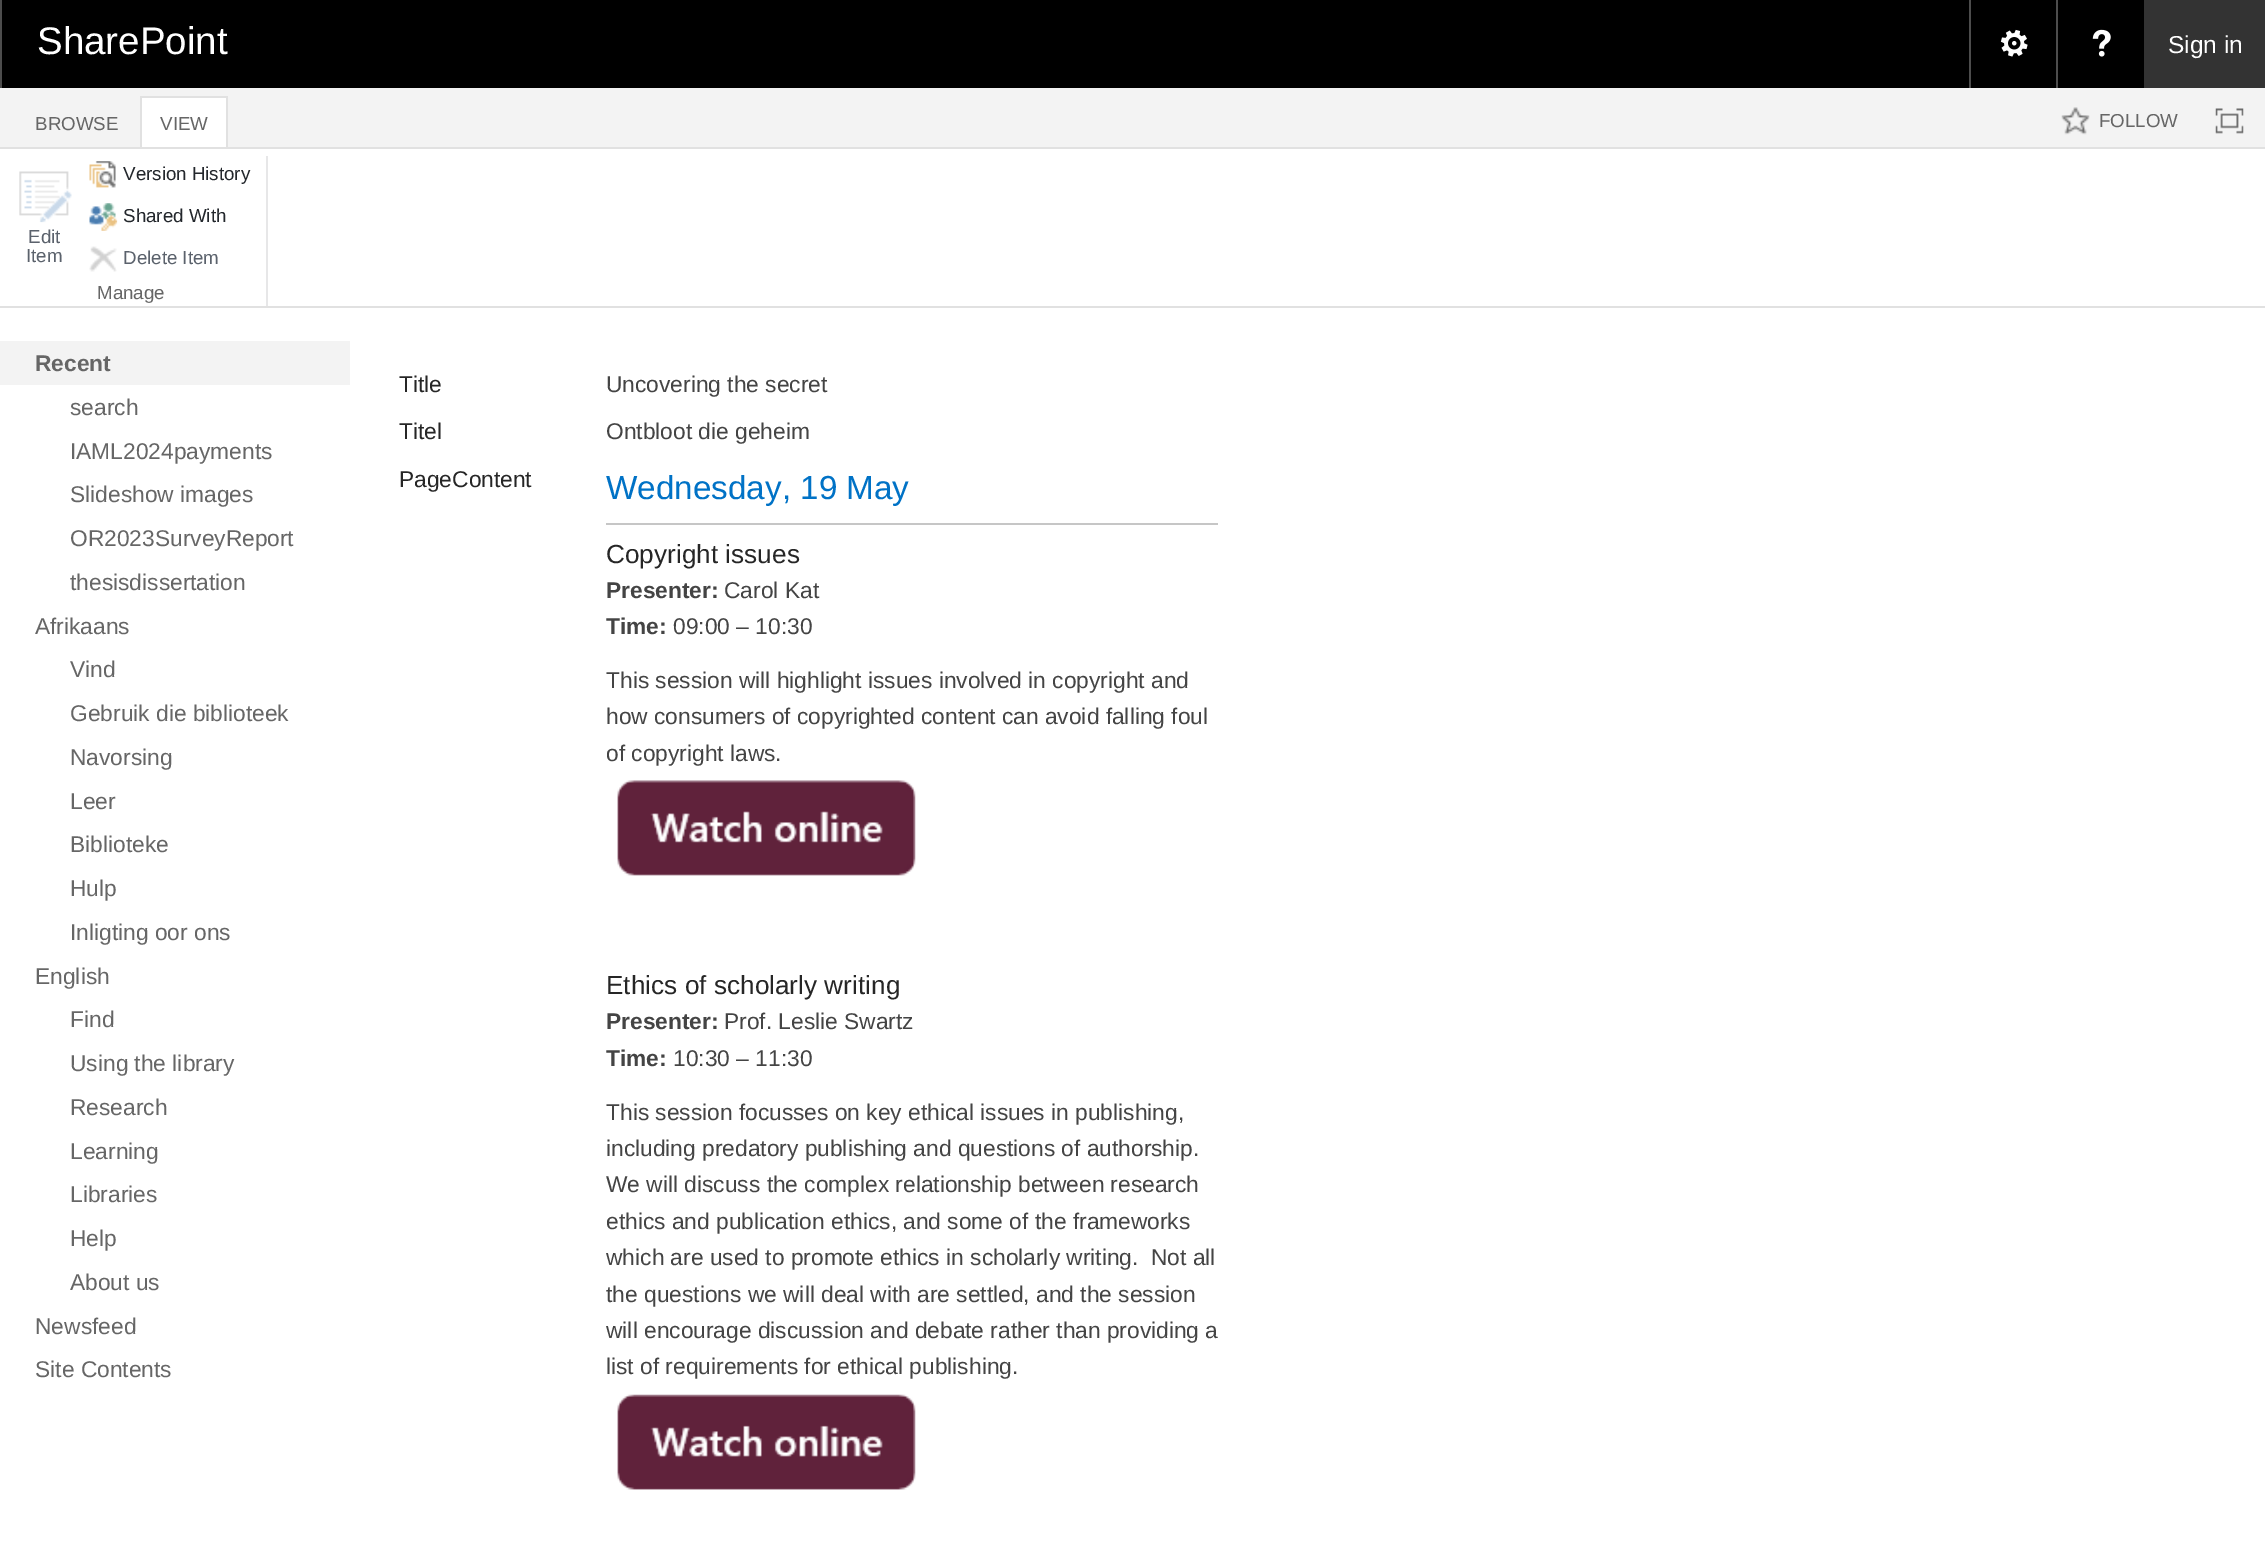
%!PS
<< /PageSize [2265 1549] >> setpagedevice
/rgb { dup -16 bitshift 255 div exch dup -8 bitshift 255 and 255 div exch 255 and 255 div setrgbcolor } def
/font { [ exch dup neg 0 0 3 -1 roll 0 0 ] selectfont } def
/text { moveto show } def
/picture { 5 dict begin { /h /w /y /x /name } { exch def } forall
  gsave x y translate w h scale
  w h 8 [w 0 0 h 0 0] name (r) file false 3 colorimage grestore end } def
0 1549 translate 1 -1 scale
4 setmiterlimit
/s1 { /LiberationSans-Regular 38.5 font 16#FFFFFF rgb } def
/s2 { /LiberationSans-Regular 24.5 font 16#FFFFFF rgb } def
/s3 { /LiberationSans-Regular 18.75 font 16#666666 rgb } def
/s4 { /LiberationSans-Regular 18.75 font 16#5B626C rgb } def
/s5 { /LiberationSans-Regular 18.75 font 16#23272C rgb } def
/s6 { /LiberationSans-Bold 22.75 font 16#666666 rgb } def
/s7 { /LiberationSans-Regular 22.75 font 16#666666 rgb } def
/s8 { /LiberationSans-Regular 22.75 font 16#262626 rgb } def
/s9 { /LiberationSans-Regular 22.75 font 16#444444 rgb } def
/s10 { /LiberationSans-Regular 33.25 font 16#0072C6 rgb } def
/s11 { /LiberationSans-Regular 26.2 font 16#262626 rgb } def
/s12 { /LiberationSans-Bold 22.75 font 16#444444 rgb } def
16#FFFFFF rgb
0 0 2265 1549 rectfill
16#000000 rgb
2 0 2142 88 rectfill
16#4D4D4D rgb
0 0 2 88 rectfill
s1
(SharePoint) 37 54 text
16#4D4D4D rgb
1969 0 2 88 rectfill
(pic1.raw) 2000 29 28 28 picture
2056 0 2 88 rectfill
(pic2.raw) 2092 29 19 28 picture
16#333333 rgb
2144 0 121 88 rectfill
s2
(Sign in) 2168 53 text
16#F3F3F3 rgb
0 88 2265 59 rectfill
16#E1E1E1 rgb
0 147 2265 2 rectfill
s3
(BROWSE) 35 130 text
16#FFFFFF rgb
142 98 84 49 rectfill
16#E1E1E1 rgb
140 96 88 2 rectfill
226 96 2 51 rectfill
140 96 2 51 rectfill
s3
(VIEW) 160 130 text
(pic3.raw) 2061 107 29 28 picture
(FOLLOW) 2099 127 text
(pic4.raw) 2215 108 29 26 picture
16#E1E1E1 rgb
0 306 2265 2 rectfill
(pic5.raw) 19 171 53 52 picture
s4
(Edit) 28 243 text
(Item) 26 262 text
(pic6.raw) 89 161 27 27 picture
s5
(Version History) 123 180 text
(pic7.raw) 89 203 29 28 picture
(Shared With) 123 222 text
(pic8.raw) 89 246 28 26 picture
s4
(Delete Item) 123 264 text
s3
(Manage) 97 299 text
16#E7E7E8 rgb
266 156 2 150 rectfill
16#F3F3F3 rgb
0 341 350 44 rectfill
s6
(Recent) 35 371 text
s7
(search) 70 415 text
(IAML2024payments) 70 459 text
(Slideshow images) 70 502 text
(OR2023SurveyReport) 70 546 text
(thesisdissertation) 70 590 text
(Afrikaans) 35 634 text
(Vind) 70 677 text
(Gebruik die biblioteek) 70 721 text
(Navorsing) 70 765 text
(Leer) 70 809 text
(Biblioteke) 70 852 text
(Hulp) 70 896 text
(Inligting oor ons) 70 940 text
(English) 35 984 text
(Find) 70 1027 text
(Using the library) 70 1071 text
(Research) 70 1115 text
(Learning) 70 1159 text
(Libraries) 70 1202 text
(Help) 70 1246 text
(About us) 70 1290 text
(Newsfeed) 35 1334 text
(Site Contents) 35 1377 text
s8
(Title) 399 392 text
s9
(Uncovering the secret) 606 392 text
s8
(Titel) 399 439 text
s9
(Ontbloot die geheim) 606 439 text
s8
(PageContent) 399 487 text
s10
(Wednesday, 19 May) 606 499 text
16#C6C6C6 rgb
606 523 612 2 rectfill
s11
(Copyright issues) 606 563 text
s12
(Presenter:) 606 598 text
s9
(Carol Kat) 724 598 text
s12
(Time:) 606 634 text
s9
(09:00 – 10:30) 673 634 text
(This session will highlight issues involved in copyright and) 606 688 text
(how consumers of copyrighted content can avoid falling foul) 606 724 text
(of copyright laws.) 606 761 text
(pic9.raw) 617 780 299 96 picture
s11
(Ethics of scholarly writing) 606 994 text
s12
(Presenter:) 606 1029 text
s9
(Prof. Leslie Swartz) 724 1029 text
s12
(Time:) 606 1066 text
s9
(10:30 – 11:30) 673 1066 text
(This session focusses on key ethical issues in publishing,) 606 1120 text
(including predatory publishing and questions of authorship.) 606 1156 text
(We will discuss the complex relationship between research) 606 1192 text
(ethics and publication ethics, and some of the frameworks) 606 1229 text
(which are used to promote ethics in scholarly writing.  Not all) 606 1265 text
(the questions we will deal with are settled, and the session) 606 1302 text
(will encourage discussion and debate rather than providing a) 606 1338 text
(list of requirements for ethical publishing.) 606 1374 text
(pic10.raw) 617 1394 299 96 picture
showpage
